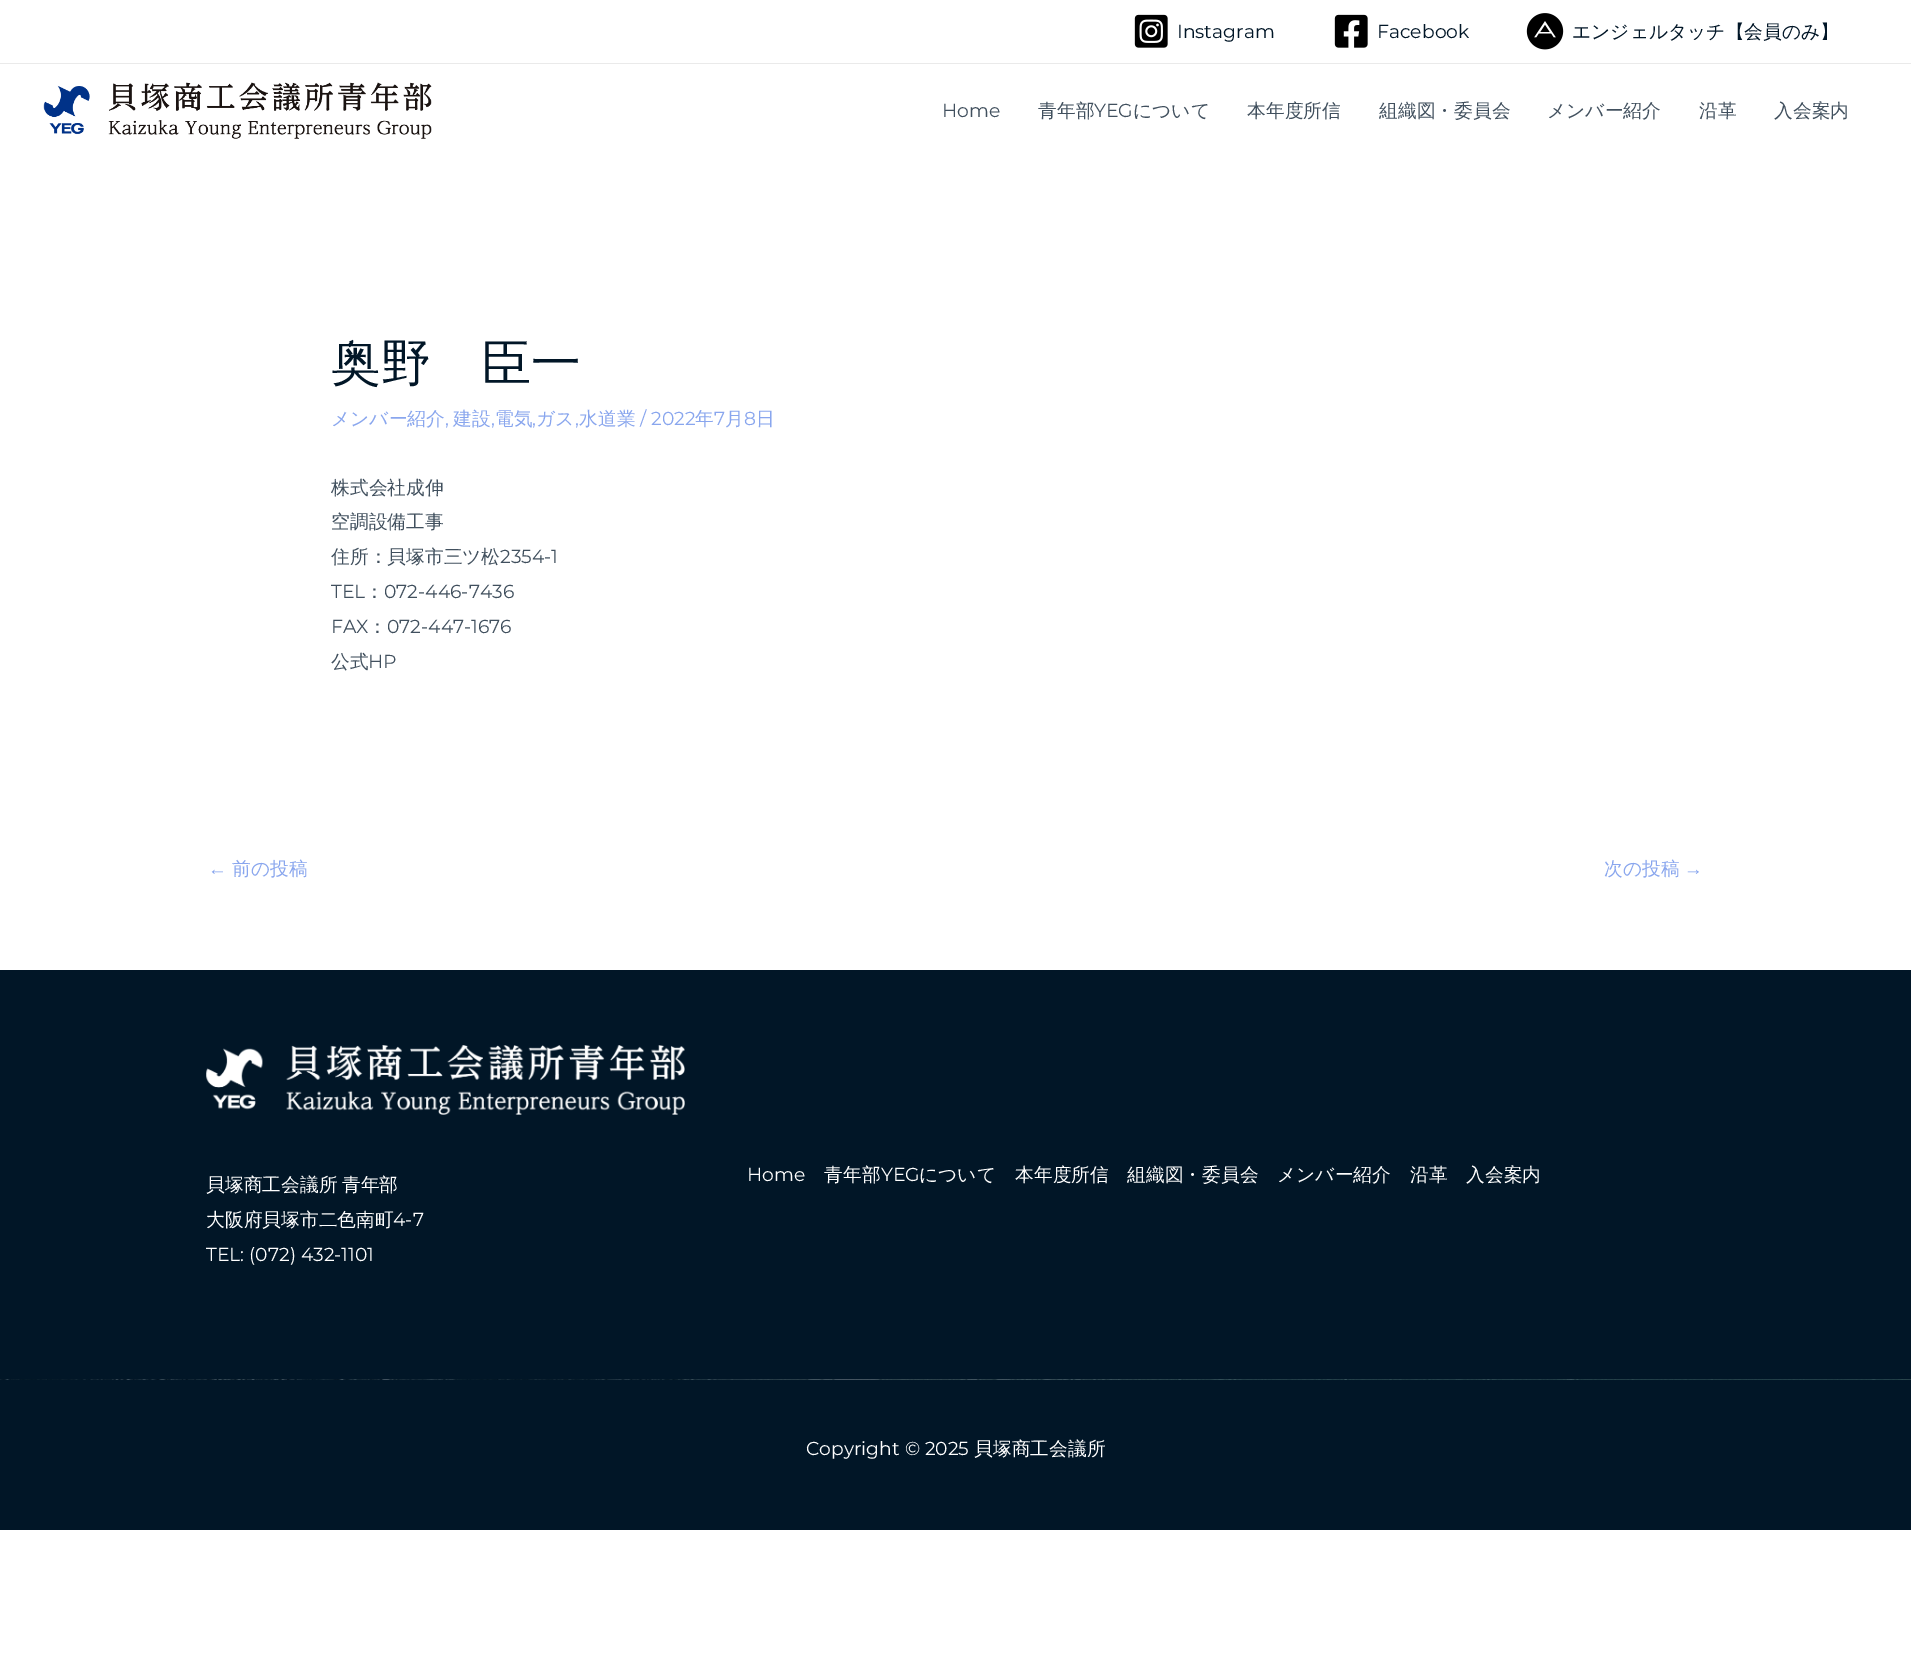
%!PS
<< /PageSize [1911 1658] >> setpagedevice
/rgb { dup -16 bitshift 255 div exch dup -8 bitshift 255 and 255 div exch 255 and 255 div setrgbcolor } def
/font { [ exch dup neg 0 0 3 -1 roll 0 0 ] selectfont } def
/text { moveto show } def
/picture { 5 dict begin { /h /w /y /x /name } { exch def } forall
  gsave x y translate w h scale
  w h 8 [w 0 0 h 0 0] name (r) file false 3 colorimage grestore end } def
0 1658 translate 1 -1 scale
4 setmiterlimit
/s1 { /Montserrat-Regular 18.75 font 16#011627 rgb } def
/s2 { /WenQuanYiZenHei-Medium 18.75 font 16#011627 rgb } def
/s3 { /Montserrat-Regular 18.75 font 16#41505E rgb } def
/s4 { /WenQuanYiZenHei-Medium 18.75 font 16#41505E rgb } def
/s5 { /WenQuanYiZenHei-Medium 50 font 16#011627 rgb } def
/s6 { /WenQuanYiZenHei-Medium 18.75 font 16#89A6EE rgb } def
/s7 { /Montserrat-Regular 18.75 font 16#89A6EE rgb } def
/s8 { /LiberationSans-Regular 18.75 font 16#89A6EE rgb } def
/s9 { /WenQuanYiZenHei-Medium 18.75 font 16#FEFEFE rgb } def
/s10 { /Montserrat-Regular 18.75 font 16#FEFEFE rgb } def
16#FFFFFF rgb
0 0 1911 1658 rectfill
16#EAEAEA rgb
0 63 1911 1 rectfill
(pic1.raw) 1134 14 34 34 picture
s1
(Instagram) 1177 38 text
(pic2.raw) 1334 14 34 34 picture
(Facebook) 1377 38 text
(pic3.raw) 1526 13 38 37 picture
s2
(エンジェルタッチ【会員のみ】) 1572 38 text
(pic4.raw) 43 82 389 57 picture
s3
(Home) 942 117 text
s4
(青年部) 1038 117 text
s3
(YEG) 1094 117 text
s4
(について) 1133 117 text
(本年度所信) 1247 117 text
(組織図・委員会) 1379 117 text
(メンバー紹介) 1547 117 text
(沿革) 1699 117 text
(入会案内) 1774 117 text
s5
(奥野　臣一) 331 380 text
s6
(メンバー紹介) 331 425 text
s7
(,) 445 425 text
s6
(建設) 453 425 text
s7
(,) 491 425 text
s6
(電気) 495 425 text
s7
(,) 532 425 text
s6
(ガス) 536 425 text
s7
(,) 575 425 text
s6
(水道業) 579 425 text
s7
(/ 2022) 640 425 text
s6
(年) 695 425 text
s7
(7) 714 425 text
s6
(月) 725 425 text
s7
(8) 744 425 text
s6
(日) 756 425 text
s4
(株式会社成伸) 331 494 text
(空調設備工事) 331 528 text
(住所：貝塚市三ツ松) 331 563 text
s3
(2354-1) 500 563 text
(TEL) 331 598 text
s4
(：) 365 598 text
s3
(072-446-7436) 384 598 text
(FAX) 331 633 text
s4
(：) 368 633 text
s3
(072-447-1676) 387 633 text
s4
(公式) 331 668 text
s3
(HP) 368 668 text
s8
(←) 208 875 text
s6
(前の投稿) 232 875 text
(次の投稿) 1604 875 text
s8
(→) 1684 875 text
16#011627 rgb
0 970 1911 560 rectfill
(pic5.raw) 0 1379 1911 1 picture
(pic6.raw) 206 1045 479 70 picture
/WenQuanYiZenHei-Medium 18.75 font
16#FEFEFE rgb
206 1191 moveto -1 0 32 (貝塚商工会議所 青年部) widthshow
(大阪府貝塚市二色南町) 206 1226 text
s10
(4-7) 393 1226 text
(TEL: \(072\) 432-1101) 206 1261 text
(Home) 747 1181 text
s9
(青年部) 824 1181 text
s10
(YEG) 881 1181 text
s9
(について) 919 1181 text
(本年度所信) 1015 1181 text
(組織図・委員会) 1127 1181 text
(メンバー紹介) 1277 1181 text
(沿革) 1410 1181 text
(入会案内) 1466 1181 text
s10
(Copyright © 2025) 806 1455 text
s9
(貝塚商工会議所) 974 1455 text
showpage
